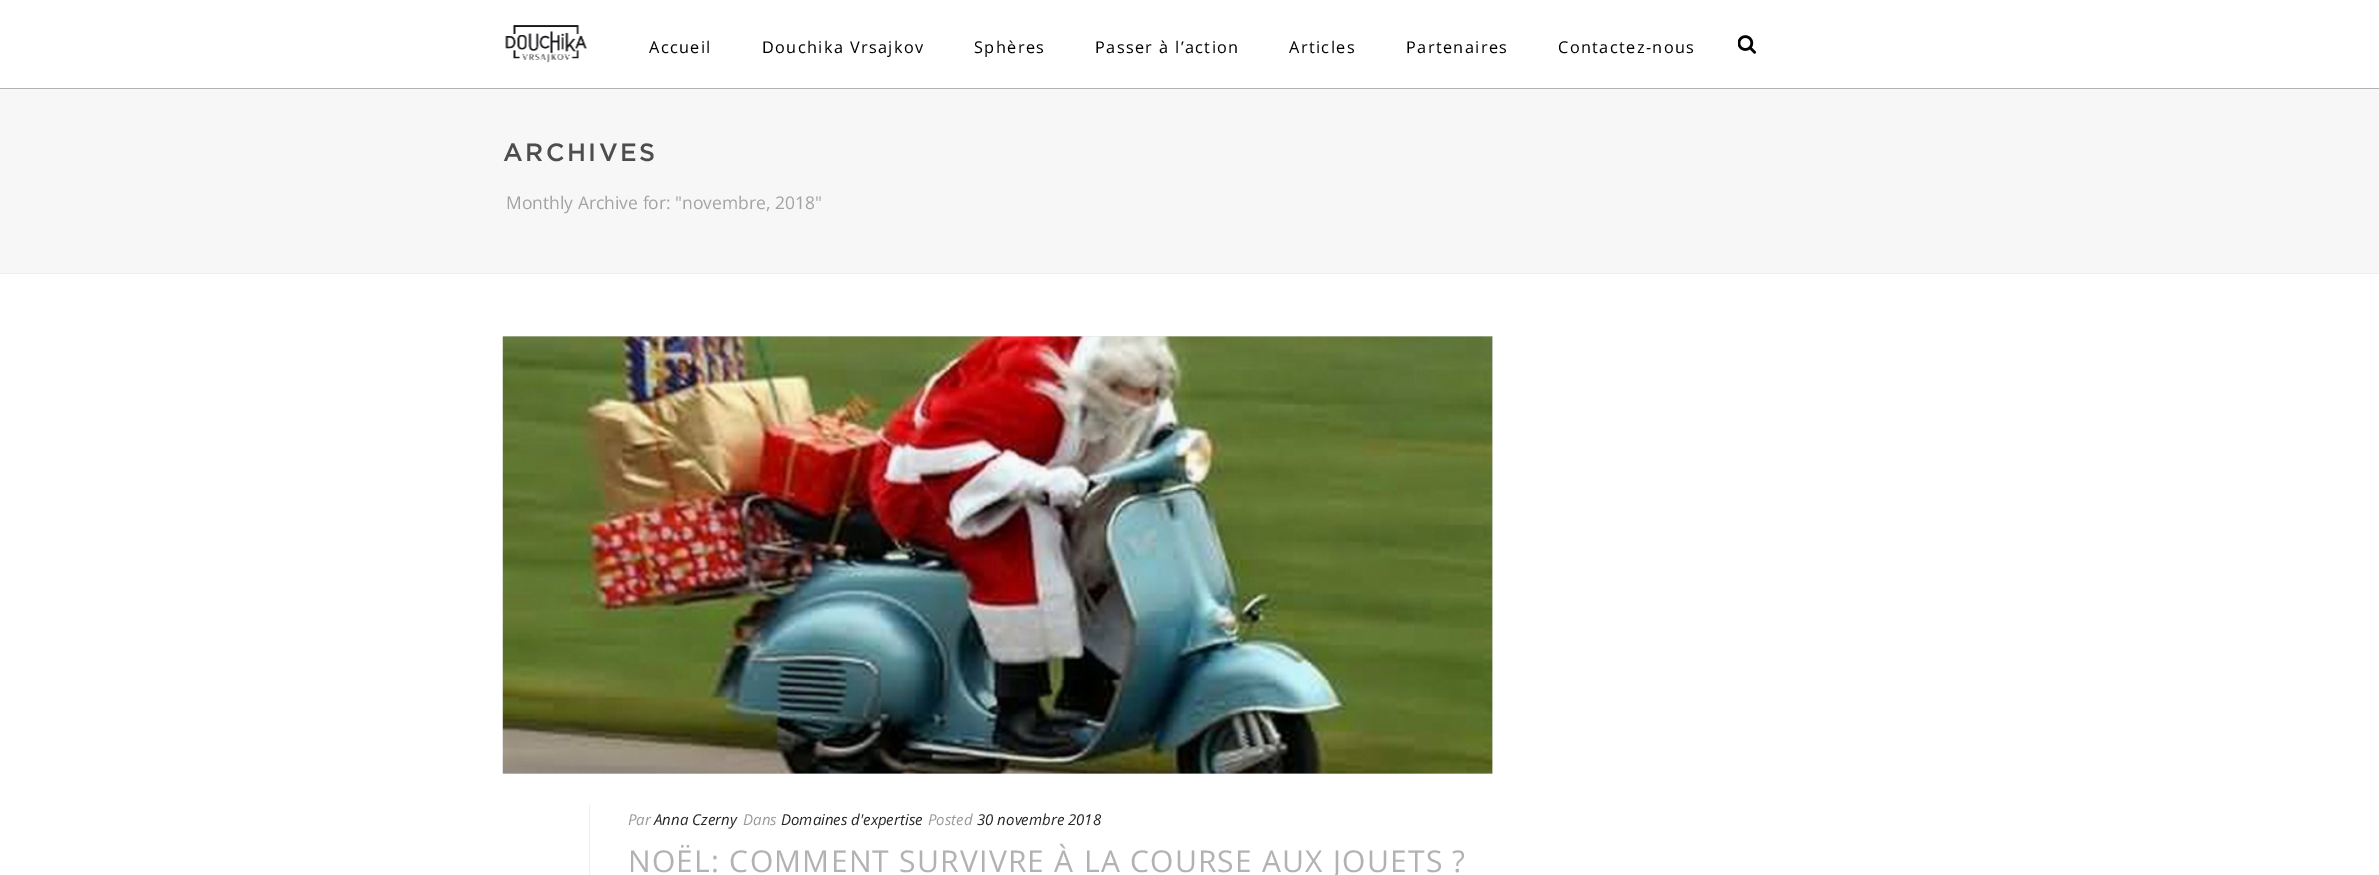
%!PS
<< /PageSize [2379 875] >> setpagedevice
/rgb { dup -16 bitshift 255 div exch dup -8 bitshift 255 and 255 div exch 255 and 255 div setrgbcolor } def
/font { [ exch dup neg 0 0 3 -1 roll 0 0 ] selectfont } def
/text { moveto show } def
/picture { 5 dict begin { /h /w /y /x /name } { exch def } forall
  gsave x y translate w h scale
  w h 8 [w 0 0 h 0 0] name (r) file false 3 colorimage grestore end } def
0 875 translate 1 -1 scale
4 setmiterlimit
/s1 { /OpenSans-Regular 17.5 font 16#A3A3A3 rgb } def
/s2 { /OpenSans-Italic 15 font 16#999999 rgb } def
/s3 { /OpenSans-Italic 15 font 16#252525 rgb } def
16#FFFFFF rgb
0 0 2379 875 rectfill
16#F7F7F7 rgb
0 89 2379 184 rectfill
16#EDEDED rgb
0 273 2379 1 rectfill
16#B2B2B2 rgb
0 88 2379 1 rectfill
(pic1.raw) 505 25 82 38 picture
/OpenSans-Regular 16.25 font
16#000000 rgb
649 53 moveto 1.4 0 (Accueil) ashow
762 53 moveto 1.4 0 (Douchika Vrsajkov) ashow
974 53 moveto 1.4 0 (Sphères) ashow
1095 53 moveto 1.4 0 (Passer à l’action) ashow
1289 53 moveto 1.4 0 (Articles) ashow
1406 53 moveto 1.4 0 (Partenaires) ashow
1558 53 moveto 1.4 0 (Contactez-nous) ashow
(pic2.raw) 1738 35 18 19 picture
/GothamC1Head-Regular 25 font
16#4D4D4D rgb
503 161 moveto 2.5 0 (ARCHIVES) ashow
s1
(Monthly Archive for: "novembre, 2018") 506 209 text
16#E0E0E0 rgb
503 336 990 438 rectfill
(pic3.raw) 502 336 991 438 picture
16#EFEFEF rgb
589 805 1 70 rectfill
s2
(Par) 628 825 text
s3
(Anna Czerny) 654 825 text
s2
(Dans) 743 825 text
s3
(Domaines d'expertise) 781 825 text
s2
(Posted) 928 825 text
s3
(30 novembre 2018) 977 825 text
/OpenSans-Regular 30 font
16#B2B2B2 rgb
628 872 moveto 1.25 0 (NOËL: COMMENT SURVIVRE À LA COURSE AUX JOUETS ?) ashow
showpage
